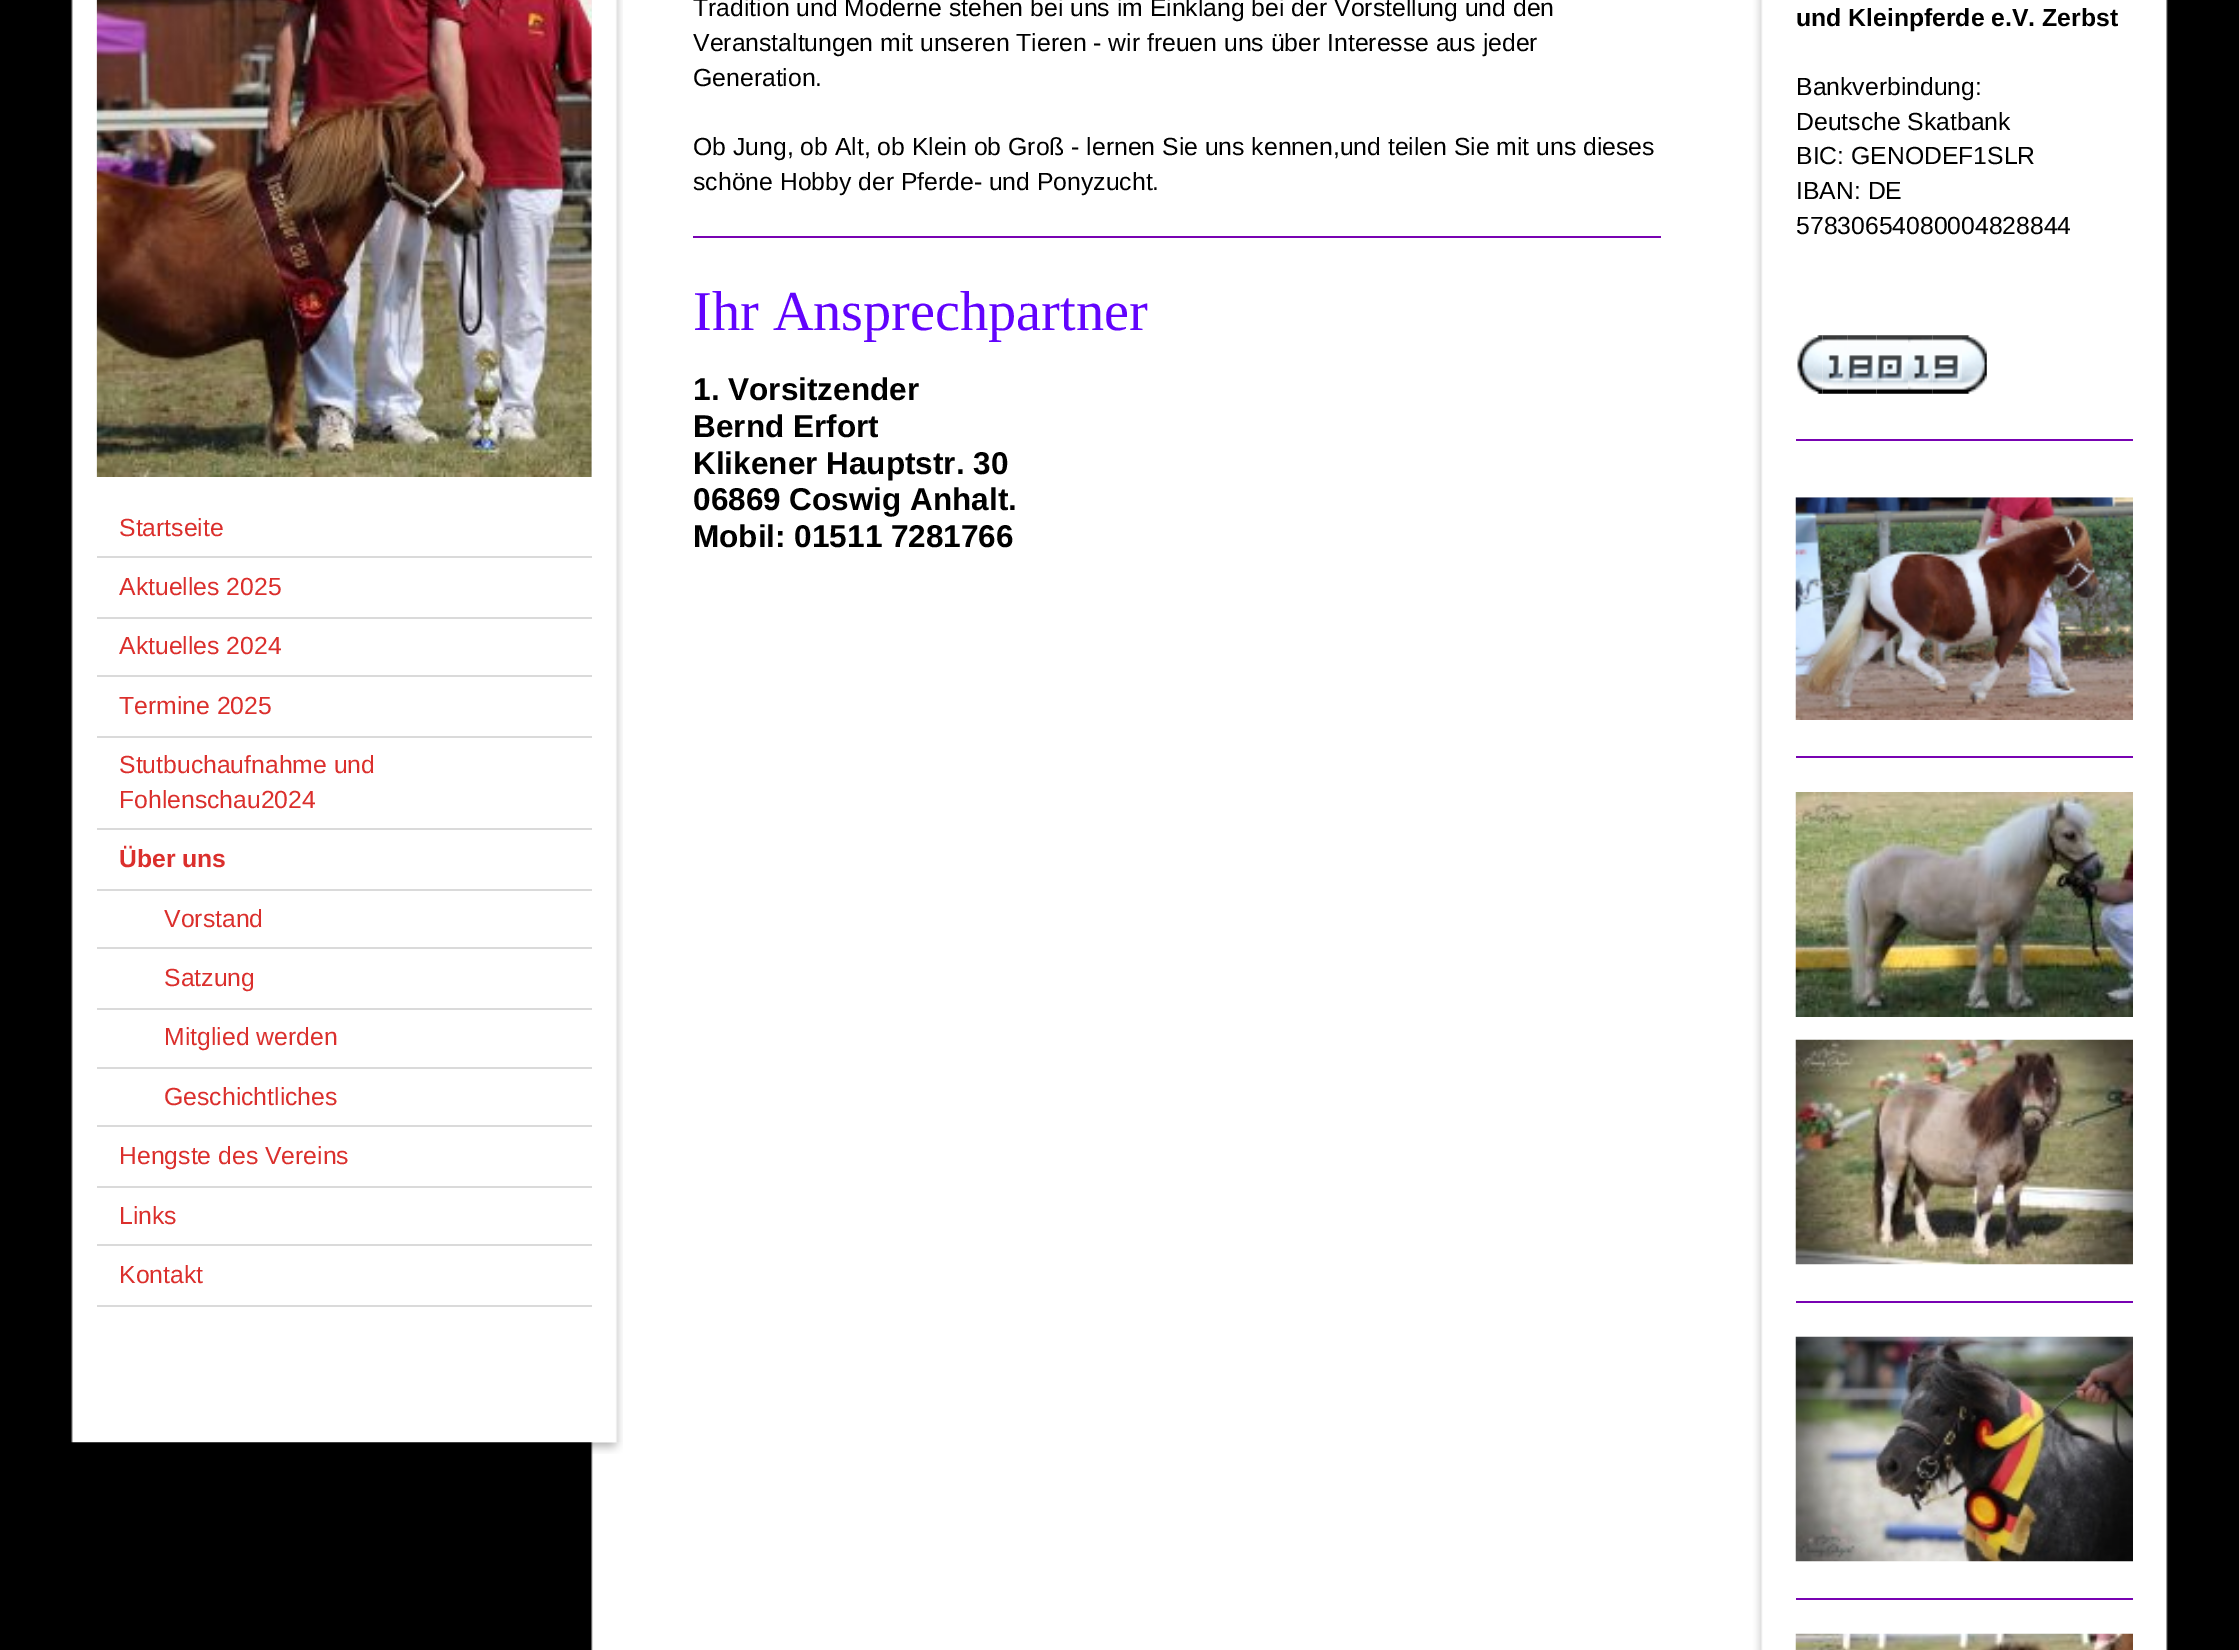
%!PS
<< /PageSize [2239 1650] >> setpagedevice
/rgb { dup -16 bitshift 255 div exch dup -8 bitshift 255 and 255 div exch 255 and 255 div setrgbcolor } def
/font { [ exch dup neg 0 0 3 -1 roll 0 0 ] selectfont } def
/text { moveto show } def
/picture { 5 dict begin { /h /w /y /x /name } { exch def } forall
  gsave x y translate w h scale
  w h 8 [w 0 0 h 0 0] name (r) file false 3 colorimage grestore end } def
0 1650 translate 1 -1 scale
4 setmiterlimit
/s1 { /LiberationSans-Regular 24.75 font 16#000000 rgb } def
/s2 { /LiberationSerif-Regular 56.25 font 16#6203FD rgb } def
/s3 { /LiberationSans-Bold 31.5 font 16#000000 rgb } def
/s4 { /LiberationSans-Bold 24.75 font 16#000000 rgb } def
/s5 { /LiberationSans-Regular 24.75 font 16#DB2F2C rgb } def
/s6 { /LiberationSans-Bold 24.75 font 16#DB2F2C rgb } def
16#000000 rgb
0 0 2239 1650 rectfill
(pic1.raw) 591 0 1577 1650 picture
s1
(Tradition und Moderne stehen bei uns im Einklang bei der Vorstellung und den) 693 16 text
(Veranstaltungen mit unseren Tieren - wir freuen uns über Interesse aus jeder) 693 51 text
(Generation.) 693 86 text
(Ob Jung, ob Alt, ob Klein ob Groß - lernen Sie uns kennen,und teilen Sie mit uns dieses) 693 155 text
(schöne Hobby der Pferde- und Ponyzucht.) 693 190 text
16#7803B2 rgb
693 236 968 2 rectfill
s2
(Ihr Ansprechpartner) 693 330 text
s3
(1. Vorsitzender) 693 400 text
(Bernd Erfort) 693 437 text
(Klikener Hauptstr. 30) 693 474 text
(06869 Coswig Anhalt.) 693 510 text
(Mobil: 01511 7281766) 693 547 text
s4
(und Kleinpferde e.V. Zerbst) 1796 26 text
s1
(Bankverbindung:) 1796 95 text
(Deutsche Skatbank) 1796 130 text
(BIC: GENODEF1SLR) 1796 164 text
(IBAN: DE) 1796 199 text
(57830654080004828844) 1796 234 text
(pic2.raw) 1797 335 26 59 picture
(pic3.raw) 1822 335 26 59 picture
(pic4.raw) 1847 335 30 59 picture
(pic5.raw) 1876 335 32 59 picture
(pic6.raw) 1908 335 25 59 picture
(pic7.raw) 1932 335 30 59 picture
(pic8.raw) 1962 335 25 59 picture
16#7803B2 rgb
1796 439 337 2 rectfill
(pic9.raw) 1795 497 338 223 picture
1796 756 337 2 rectfill
(pic10.raw) 1795 792 338 225 picture
(pic11.raw) 1795 1039 338 226 picture
1796 1301 337 2 rectfill
(pic12.raw) 1795 1336 338 226 picture
1796 1598 337 2 rectfill
(pic13.raw) 1795 1633 338 17 picture
(pic14.raw) 591 1442 32 12 picture
(pic15.raw) 71 0 552 1443 picture
(pic16.raw) 96 0 1 477 picture
16#EEEEEE rgb
591 0 1 477 rectfill
(pic17.raw) 96 0 496 477 picture
16#DADADA rgb
97 556 495 2 rectfill
s5
(Startseite) 119 536 text
16#DADADA rgb
97 617 495 2 rectfill
s5
(Aktuelles 2025) 119 595 text
16#DADADA rgb
97 675 495 2 rectfill
s5
(Aktuelles 2024) 119 654 text
16#DADADA rgb
97 736 495 2 rectfill
s5
(Termine 2025) 119 714 text
16#DADADA rgb
97 828 495 2 rectfill
s5
(Stutbuchaufnahme und) 119 773 text
(Fohlenschau2024) 119 808 text
16#DADADA rgb
97 889 495 2 rectfill
s6
(Über uns) 119 867 text
16#DADADA rgb
97 947 495 2 rectfill
s5
(Vorstand) 164 927 text
16#DADADA rgb
97 1008 495 2 rectfill
s5
(Satzung) 164 986 text
16#DADADA rgb
97 1067 495 2 rectfill
s5
(Mitglied werden) 164 1045 text
16#DADADA rgb
97 1125 495 2 rectfill
s5
(Geschichtliches) 164 1105 text
16#DADADA rgb
97 1186 495 2 rectfill
s5
(Hengste des Vereins) 119 1164 text
16#DADADA rgb
97 1244 495 2 rectfill
s5
(Links) 119 1224 text
16#DADADA rgb
97 1305 495 2 rectfill
s5
(Kontakt) 119 1283 text
showpage
